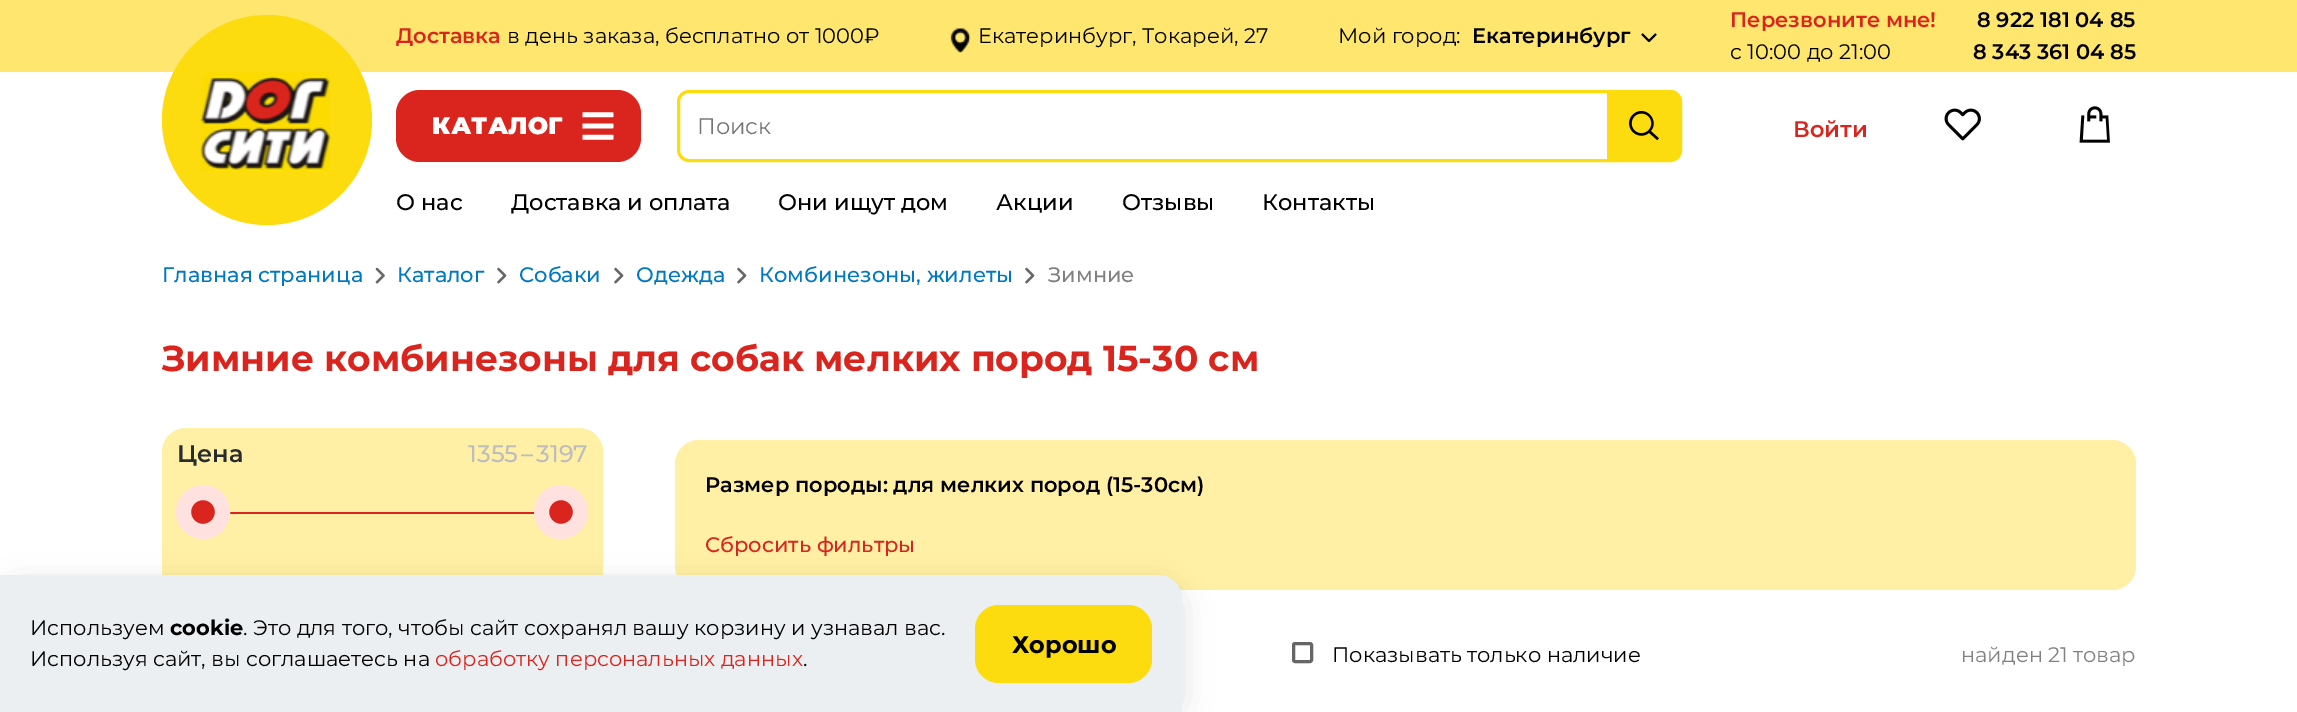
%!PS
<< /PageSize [2297 712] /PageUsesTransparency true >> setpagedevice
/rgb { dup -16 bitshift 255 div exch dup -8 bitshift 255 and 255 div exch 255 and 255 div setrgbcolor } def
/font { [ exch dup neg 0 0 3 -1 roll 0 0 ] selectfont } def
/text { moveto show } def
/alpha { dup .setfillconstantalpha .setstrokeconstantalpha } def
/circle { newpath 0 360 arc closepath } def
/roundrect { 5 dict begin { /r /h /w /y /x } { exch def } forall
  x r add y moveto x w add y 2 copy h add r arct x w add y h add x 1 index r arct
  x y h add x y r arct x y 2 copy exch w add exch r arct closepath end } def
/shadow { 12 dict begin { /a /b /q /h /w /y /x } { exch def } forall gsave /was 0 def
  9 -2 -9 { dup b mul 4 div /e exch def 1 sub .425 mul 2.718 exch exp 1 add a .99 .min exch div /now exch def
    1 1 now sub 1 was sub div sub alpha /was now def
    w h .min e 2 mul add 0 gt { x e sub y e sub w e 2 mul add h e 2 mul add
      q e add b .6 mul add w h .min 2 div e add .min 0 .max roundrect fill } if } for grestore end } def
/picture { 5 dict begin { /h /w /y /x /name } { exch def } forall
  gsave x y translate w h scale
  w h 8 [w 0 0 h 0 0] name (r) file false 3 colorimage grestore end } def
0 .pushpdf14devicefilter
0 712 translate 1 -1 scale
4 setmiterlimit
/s1 { /Montserrat-SemiBold 21 font 16#D9251D rgb } def
/s2 { /Montserrat-Regular 21 font 16#000000 rgb } def
/s3 { /Montserrat-SemiBold 21 font 16#000000 rgb } def
/s4 { /Montserrat-Regular 22.5 font 16#757575 rgb } def
/s5 { /Montserrat-SemiBold 22.5 font 16#D9251D rgb } def
/s6 { /Montserrat-Medium 22.5 font 16#000000 rgb } def
/s7 { /Montserrat-Medium 21 font 16#0179C0 rgb } def
/s8 { /Montserrat-Medium 21 font 16#808080 rgb } def
/s9 { /Montserrat-Bold 36 font 16#D9251D rgb } def
/s10 { /Montserrat-SemiBold 24 font 16#282C2F rgb } def
/s11 { /Montserrat-Medium 24 font 16#BDBDBD rgb } def
/s12 { /Montserrat-Medium 21 font 16#D9251D rgb } def
/s13 { /Montserrat-Regular 21 font 16#808080 rgb } def
/s14 { /Montserrat-Bold 21 font 16#000000 rgb } def
/s15 { /Montserrat-Regular 21 font 16#D9251D rgb } def
/s16 { /Montserrat-Bold 24 font 16#000000 rgb } def
16#FFFFFF rgb
0 0 2297 712 rectfill
16#FFE76F rgb
0 0 2297 72 rectfill
s1
(Доставка) 396 43 text
s2
(в день заказа, бесплатно от 1000₽) 507 43 text
(pic1.raw) 950 28 21 25 picture
(Екатеринбург, Токарей, 27) 978 43 text
(Мой город:) 1338 43 text
s3
(Екатеринбург) 1472 43 text
2 setlinewidth
1 setlinejoin
1656 34 moveto 1649 41 lineto 1642 34 lineto stroke
s1
(Перезвоните мне!) 1730 27 text
s2
(с 10:00 до 21:00) 1730 59 text
s3
(8 922 181 04 85) 1977 27 text
(8 343 361 04 85) 1973 59 text
16#FCDC0F rgb
267 120 105 circle fill
(pic2.raw) 200 71 131 100 picture
16#D9251D rgb
396 90 245 72 24 roundrect fill
/Montserrat-Black 24 font
16#FFFFFF rgb
432 134 moveto 0.25 0 (КАТАЛОГ) ashow
(pic3.raw) 582 112 32 28 picture
16#FCDC0E rgb
3 setlinewidth
0 setlinejoin
678.5 91.5 1002 69 10.5 roundrect stroke
s4
(Поиск) 697 134 text
16#FCDC0E rgb
1607 90 moveto 1670 90 lineto 1676.5 90 1682 95.5 1682 102 curveto 1682 150 lineto 1682 156.5 1676.5 162 1670 162 curveto 1607 162 lineto closepath fill
(pic4.raw) 1629 111 30 30 picture
s5
(Войти) 1793 137 text
(pic5.raw) 1944 108 37 33 picture
(pic6.raw) 2079 106 31 37 picture
s6
(О нас) 396 210 text
(Доставка и оплата) 511 210 text
(Они ищут дом) 778 210 text
(Акции) 996 210 text
(Отзывы) 1122 210 text
(Контакты) 1262 210 text
s7
(Главная страница) 162 282 text
(pic7.raw) 375 267 10 17 picture
(Каталог) 397 282 text
(pic8.raw) 497 267 10 17 picture
(Собаки) 519 282 text
(pic8.raw) 614 267 10 17 picture
(Одежда) 636 282 text
(pic8.raw) 737 267 10 17 picture
(Комбинезоны, жилеты) 759 282 text
(pic8.raw) 1025 267 10 17 picture
s8
(Зимние) 1048 282 text
s9
(Зимние комбинезоны для собак мелких пород 15-30 см) 162 371 text
16#FFF0A5 rgb
162 428 441 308 24 roundrect fill
s10
(Цена) 177 462 text
s11
(1355) 468 462 text
(–) 521 462 text
(3197) 536 462 text
16#D9251D rgb
229 512 306 2 rectfill
203 512 19.5 circle gsave fill grestore
16#FFE1E0 rgb
15 setlinewidth
stroke
16#D9251D rgb
561 512 19.5 circle gsave fill grestore
16#FFE1E0 rgb
stroke
16#FFF0A5 rgb
675 440 1461 150 24 roundrect fill
s3
(Размер породы: для мелких пород \(15-30см\)) 705 492 text
s12
(Сбросить фильтры) 705 552 text
16#808080 rgb
3 setlinewidth
1293.5 643.5 18 18 1.5 roundrect stroke
0.2 alpha
16#000000 rgb
1293.5 643.5 18 18 1.5 roundrect stroke
1 alpha
s2
(Показывать только наличие) 1332 662 text
s13
(найден 21 товар) 1961 662 text
16#000000 rgb
0 584 1182 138 24 15 0.12 shadow
16#ECEFF2 rgb
0 575 moveto 1158 575 lineto 1171.5 575 1182 585.5 1182 599 curveto 1182 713 lineto 0 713 lineto closepath fill
s2
(Используем) 30 635 text
s14
(cookie) 170 635 text
s2
(. Это для того, чтобы сайт сохранял вашу корзину и узнавал вас.) 243 635 text
(Используя сайт, вы соглашаетесь на) 30 666 text
s15
(обработку персональных данных) 435 666 text
s2
(.) 803 666 text
16#FCDC0F rgb
975 605 177 78 24 roundrect fill
s16
(Хорошо) 1012 653 text
.poppdf14devicefilter showpage
